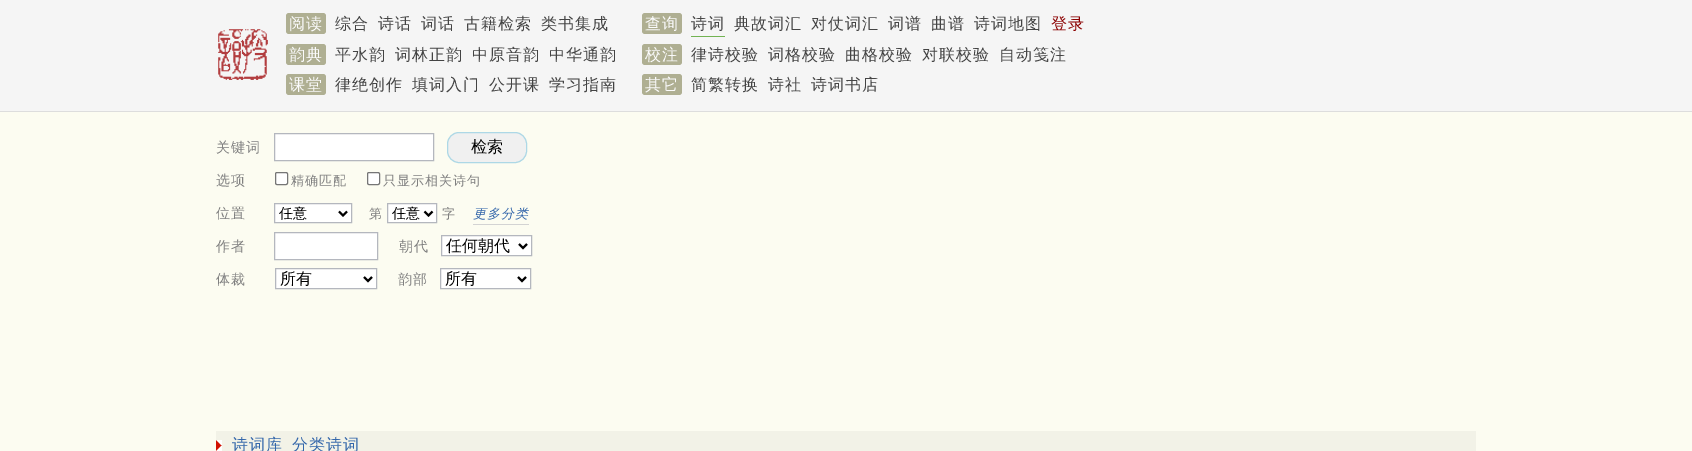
%!PS
<< /PageSize [1692 451] >> setpagedevice
/rgb { dup -16 bitshift 255 div exch dup -8 bitshift 255 and 255 div exch 255 and 255 div setrgbcolor } def
/font { [ exch dup neg 0 0 3 -1 roll 0 0 ] selectfont } def
/text { moveto show } def
/roundrect { 5 dict begin { /r /h /w /y /x } { exch def } forall
  x r add y moveto x w add y 2 copy h add r arct x w add y h add x 1 index r arct
  x y h add x y r arct x y 2 copy exch w add exch r arct closepath end } def
/picture { 5 dict begin { /h /w /y /x /name } { exch def } forall
  gsave x y translate w h scale
  w h 8 [w 0 0 h 0 0] name (r) file false 3 colorimage grestore end } def
0 451 translate 1 -1 scale
4 setmiterlimit
/s1 { /WenQuanYiZenHei-Medium 16 font 16#000000 rgb } def
/s2 { /WenQuanYiZenHei-Medium 14 font 16#000000 rgb } def
16#FCFCF1 rgb
0 0 1692 451 rectfill
16#F5F5F5 rgb
0 0 1692 111 rectfill
16#DDDDDD rgb
0 111 1692 1 rectfill
16#AFAF92 rgb
286 13 40 21 3 roundrect fill
/WenQuanYiZenHei-Medium 16 font
16#FBFBFB rgb
289 29 moveto 1 0 (阅读) ashow
16#444444 rgb
335 29 moveto 1 0 (综合) ashow
378 29 moveto 1 0 (诗话) ashow
421 29 moveto 1 0 (词话) ashow
464 29 moveto 1 0 (古籍检索) ashow
541 29 moveto 1 0 (类书集成) ashow
16#AFAF92 rgb
642 13 40 21 3 roundrect fill
16#FBFBFB rgb
645 29 moveto 1 0 (查询) ashow
16#444444 rgb
691 29 moveto 1 0 (诗词) ashow
16#72B352 rgb
691 36 34 1 rectfill
16#444444 rgb
734 29 moveto 1 0 (典故词汇) ashow
811 29 moveto 1 0 (对仗词汇) ashow
888 29 moveto 1 0 (词谱) ashow
931 29 moveto 1 0 (曲谱) ashow
974 29 moveto 1 0 (诗词地图) ashow
16#8B0000 rgb
1051 29 moveto 1 0 (登录) ashow
(pic1.raw) 218 29 50 51 picture
16#AFAF92 rgb
286 44 40 21 3 roundrect fill
16#FBFBFB rgb
289 60 moveto 1 0 (韵典) ashow
16#444444 rgb
335 60 moveto 1 0 (平水韵) ashow
395 60 moveto 1 0 (词林正韵) ashow
472 60 moveto 1 0 (中原音韵) ashow
549 60 moveto 1 0 (中华通韵) ashow
16#AFAF92 rgb
642 44 40 21 3 roundrect fill
16#FBFBFB rgb
645 60 moveto 1 0 (校注) ashow
16#444444 rgb
691 60 moveto 1 0 (律诗校验) ashow
768 60 moveto 1 0 (词格校验) ashow
845 60 moveto 1 0 (曲格校验) ashow
922 60 moveto 1 0 (对联校验) ashow
999 60 moveto 1 0 (自动笺注) ashow
16#AFAF92 rgb
286 74 40 21 3 roundrect fill
16#FBFBFB rgb
289 90 moveto 1 0 (课堂) ashow
16#444444 rgb
335 90 moveto 1 0 (律绝创作) ashow
412 90 moveto 1 0 (填词入门) ashow
489 90 moveto 1 0 (公开课) ashow
549 90 moveto 1 0 (学习指南) ashow
16#AFAF92 rgb
642 74 40 21 3 roundrect fill
16#FBFBFB rgb
645 90 moveto 1 0 (其它) ashow
16#444444 rgb
691 90 moveto 1 0 (简繁转换) ashow
768 90 moveto 1 0 (诗社) ashow
811 90 moveto 1 0 (诗词书店) ashow
/WenQuanYiZenHei-Medium 14 font
16#808080 rgb
216 152 moveto 1 0 (关键词) ashow
16#FFFFFF rgb
274.5 133.5 moveto 433.5 133.5 lineto 433.5 160.5 lineto 274.5 160.5 lineto closepath gsave fill grestore
16#B4B7BE rgb
stroke
16#F0F0F0 rgb
447.5 132.5 79 30 11.5 roundrect gsave fill grestore
16#ADD8E6 rgb
stroke
s1
(检索) 471 152 text
/WenQuanYiZenHei-Medium 14 font
16#808080 rgb
216 185 moveto 1 0 (选项) ashow
16#FFFFFF rgb
275.5 172.5 12 12 1.5 roundrect gsave fill grestore
16#767676 rgb
stroke
/WenQuanYiZenHei-Medium 13 font
16#808080 rgb
291 185 moveto 1 0 (精确匹配) ashow
16#FFFFFF rgb
367.5 172.5 12 12 1.5 roundrect gsave fill grestore
16#767676 rgb
stroke
16#808080 rgb
383 185 moveto 1 0 (只显示相关诗句) ashow
/WenQuanYiZenHei-Medium 14 font
216 218 moveto 1 0 (位置) ashow
16#FFFFFF rgb
274.5 203.5 moveto 351.5 203.5 lineto 351.5 222.5 lineto 274.5 222.5 lineto closepath gsave fill grestore
16#B4B7BE rgb
stroke
16#000000 rgb
2 setlinewidth
339 211.5 moveto 343 215.5 lineto 347 211.5 lineto stroke
(任意) 279 218 text
/WenQuanYiZenHei-Medium 13 font
16#808080 rgb
369 218 moveto 1 0 (第) ashow
16#FFFFFF rgb
387.5 203.5 moveto 436.5 203.5 lineto 436.5 222.5 lineto 387.5 222.5 lineto closepath gsave fill grestore
16#B4B7BE rgb
1 setlinewidth
stroke
16#000000 rgb
2 setlinewidth
424.5 211.5 moveto 428.5 215.5 lineto 432.5 211.5 lineto stroke
s2
(任意) 392 218 text
/WenQuanYiZenHei-Medium 13 font
16#808080 rgb
442 218 moveto 1 0 (字) ashow
/WenQuanYiZenHei-MediumItalic 13 font
16#3366AA rgb
473 218 moveto 1 0 (更多分类) ashow
16#D3D3D3 rgb
473 224 56 1 rectfill
/WenQuanYiZenHei-Medium 14 font
16#808080 rgb
216 251 moveto 1 0 (作者) ashow
16#FFFFFF rgb
274.5 232.5 moveto 377.5 232.5 lineto 377.5 259.5 lineto 274.5 259.5 lineto closepath gsave fill grestore
16#B4B7BE rgb
1 setlinewidth
stroke
16#808080 rgb
399 251 moveto 1 0 (朝代) ashow
16#FFFFFF rgb
441.5 235.5 moveto 531.5 235.5 lineto 531.5 255.5 lineto 441.5 255.5 lineto closepath gsave fill grestore
16#B4B7BE rgb
stroke
16#000000 rgb
2 setlinewidth
519 244 moveto 523 248 lineto 527 244 lineto stroke
s1
(任何朝代) 446 251 text
/WenQuanYiZenHei-Medium 14 font
16#808080 rgb
216 284 moveto 1 0 (体裁) ashow
16#FFFFFF rgb
275.5 268.5 moveto 376.5 268.5 lineto 376.5 288.5 lineto 275.5 288.5 lineto closepath gsave fill grestore
16#B4B7BE rgb
1 setlinewidth
stroke
16#000000 rgb
2 setlinewidth
364 277 moveto 368 281 lineto 372 277 lineto stroke
s1
(所有) 280 284 text
/WenQuanYiZenHei-Medium 14 font
16#808080 rgb
398 284 moveto 1 0 (韵部) ashow
16#FFFFFF rgb
440.5 268.5 moveto 530.5 268.5 lineto 530.5 288.5 lineto 440.5 288.5 lineto closepath gsave fill grestore
16#B4B7BE rgb
1 setlinewidth
stroke
16#000000 rgb
2 setlinewidth
518 277 moveto 522 281 lineto 526 277 lineto stroke
s1
(所有) 445 284 text
16#F2F2E7 rgb
216 431 1260 20 rectfill
(pic2.raw) 216 440 6 11 picture
16#3366AA rgb
232 450 moveto 1 0 (诗词库) ashow
292 450 moveto 1 0 (分类诗词) ashow
showpage
